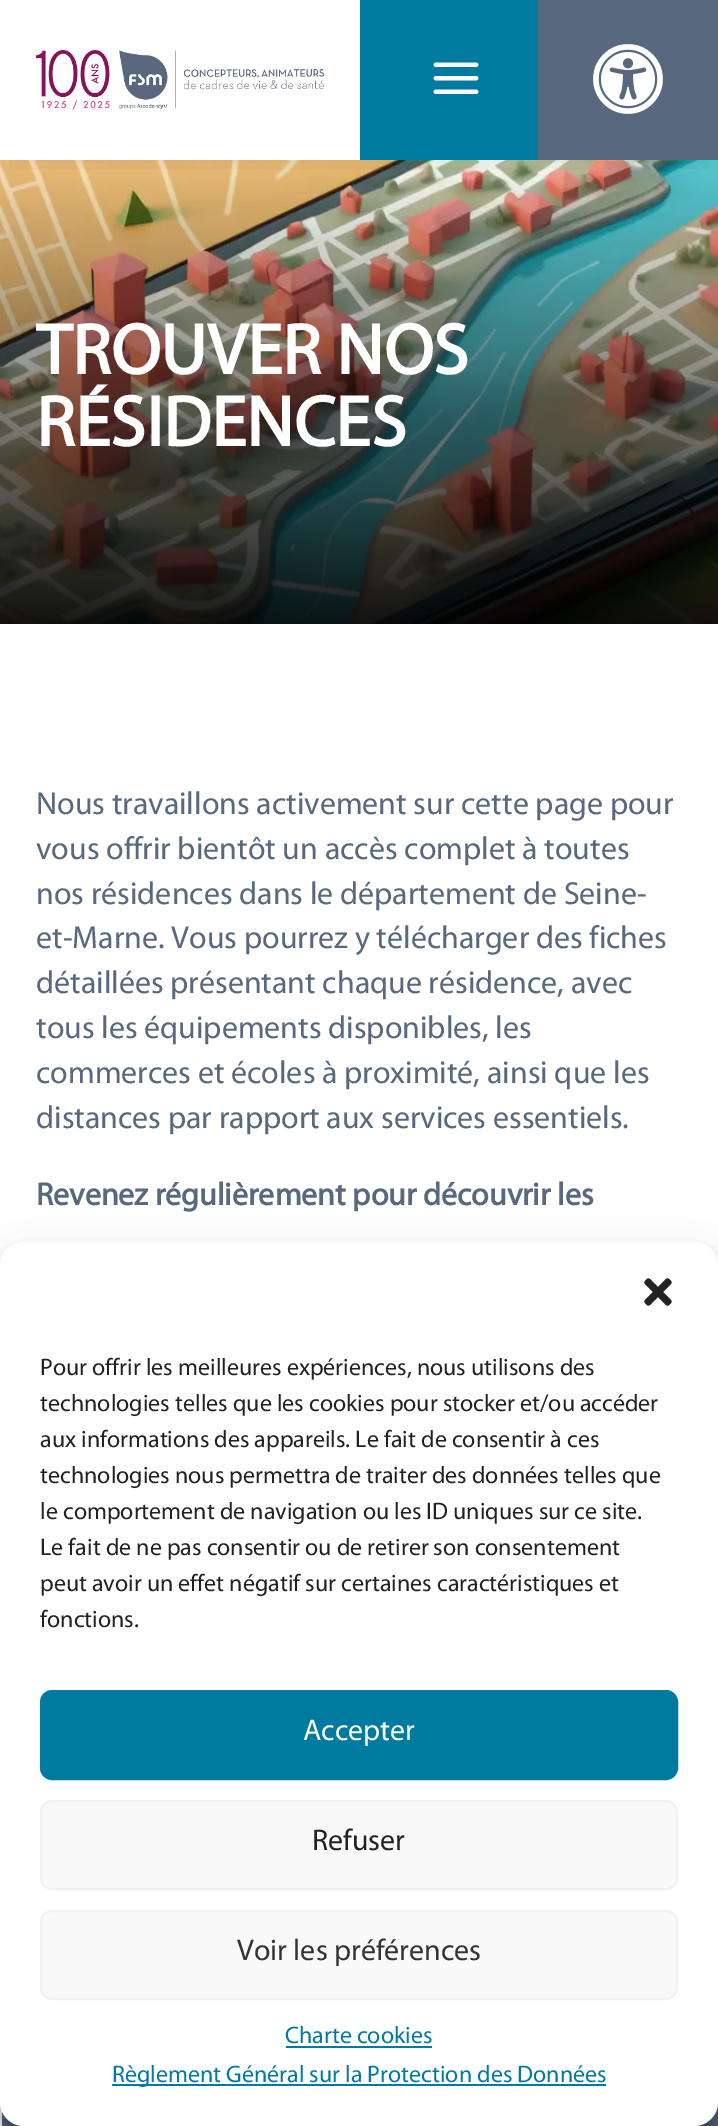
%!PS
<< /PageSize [718 2126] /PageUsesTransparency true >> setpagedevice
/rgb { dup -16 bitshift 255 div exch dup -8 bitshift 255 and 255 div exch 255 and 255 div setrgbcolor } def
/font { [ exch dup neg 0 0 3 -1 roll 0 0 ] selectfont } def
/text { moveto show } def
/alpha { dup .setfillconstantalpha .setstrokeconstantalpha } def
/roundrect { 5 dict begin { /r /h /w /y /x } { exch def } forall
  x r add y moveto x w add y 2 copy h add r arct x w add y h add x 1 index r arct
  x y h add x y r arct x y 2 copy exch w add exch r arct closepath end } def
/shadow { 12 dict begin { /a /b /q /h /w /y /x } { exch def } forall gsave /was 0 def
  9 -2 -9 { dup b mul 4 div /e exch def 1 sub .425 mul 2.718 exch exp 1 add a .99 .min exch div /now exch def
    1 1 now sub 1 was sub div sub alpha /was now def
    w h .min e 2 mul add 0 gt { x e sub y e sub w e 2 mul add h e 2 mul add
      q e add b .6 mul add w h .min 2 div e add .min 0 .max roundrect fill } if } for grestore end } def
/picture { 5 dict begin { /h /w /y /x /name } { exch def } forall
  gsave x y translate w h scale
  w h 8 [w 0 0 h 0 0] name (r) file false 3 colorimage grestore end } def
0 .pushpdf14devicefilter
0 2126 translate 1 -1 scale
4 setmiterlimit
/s1 { /Myriad-Bold 72 font 16#FFFFFF rgb } def
/s2 { /Myriad-Regular 32 font 16#58687E rgb } def
/s3 { /Myriad-Bold 32 font 16#58687E rgb } def
/s4 { /Myriad-Regular 24 font 16#222222 rgb } def
/s5 { /Myriad-Regular 30 font 16#FFFFFF rgb } def
/s6 { /Myriad-Regular 30 font 16#222222 rgb } def
/s7 { /Myriad-Regular 30 font 16#333333 rgb } def
/s8 { /Myriad-Regular 24 font 16#007A9E rgb } def
16#FFFFFF rgb
0 0 718 2126 rectfill
(pic4.raw) 0 160 718 464 picture
gsave
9 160 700 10 rectclip
16#000000 rgb
12 24 694 136 0 12 0.1 shadow
grestore
(pic1.raw) 36 50 288 60 picture
16#007A9E rgb
360 0 178 160 rectfill
(pic2.raw) 433 62 46 32 picture
16#58687E rgb
538 0 180 160 rectfill
(pic3.raw) 593 44 70 70 picture
s1
(TROUVER NOS) 36 374 text
(RÉSIDENCES) 36 446 text
s2
(Nous travaillons activement sur cette page pour) 36 814 text
(vous offrir bientôt un accès complet à toutes) 36 859 text
(nos résidences dans le département de Seine-) 36 904 text
(et-Marne. Vous pourrez y télécharger des fiches) 36 948 text
(détaillées présentant chaque résidence, avec) 36 993 text
(tous les équipements disponibles, les) 36 1038 text
(commerces et écoles à proximité, ainsi que les) 36 1083 text
(distances par rapport aux services essentiels.) 36 1128 text
s3
(Revenez régulièrement pour découvrir les) 36 1205 text
2 2102 716 24 rectfill
16#000000 rgb
0 1254 718 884 24 6 0.23 shadow
0 1262 718 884 24 20 0.19 shadow
16#FFFFFF rgb
0 1242 718 884 24 roundrect fill
(pic5.raw) 644 1278 28 28 picture
s4
(Pour offrir les meilleures expériences, nous utilisons des) 40 1375 text
(technologies telles que les cookies pour stocker et/ou accéder) 40 1411 text
(aux informations des appareils. Le fait de consentir à ces) 40 1447 text
(technologies nous permettra de traiter des données telles que) 40 1483 text
(le comportement de navigation ou les ID uniques sur ce site.) 40 1519 text
(Le fait de ne pas consentir ou de retirer son consentement) 40 1555 text
(peut avoir un effet négatif sur certaines caractéristiques et) 40 1591 text
(fonctions.) 40 1627 text
16#007A9E rgb
41 1691 636 88 11 roundrect gsave fill grestore
2 setlinewidth
stroke
s5
(Accepter) 303 1740 text
16#F9F9F9 rgb
41 1801 636 88 11 roundrect gsave fill grestore
16#F2F2F2 rgb
stroke
s6
(Refuser) 312 1850 text
16#F9F9F9 rgb
41 1911 636 88 11 roundrect gsave fill grestore
16#F2F2F2 rgb
stroke
s7
(Voir les préférences) 237 1960 text
s8
(Charte cookies) 285 2043 text
286 2046 146 2 rectfill
112 2084 494 2 rectfill
(Règlement Général sur la Protection des Données) 112 2082 text
.poppdf14devicefilter showpage
